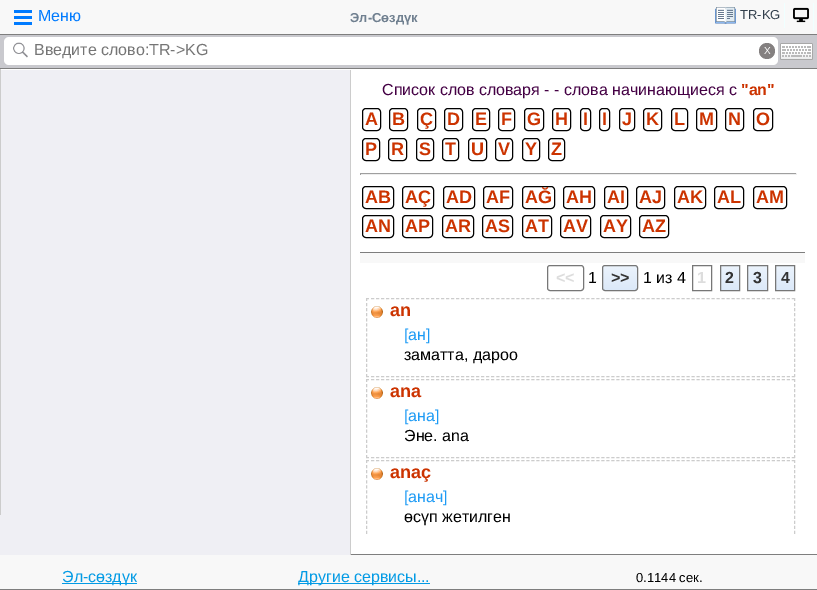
%!PS
<< /PageSize [817 590] >> setpagedevice
/rgb { dup -16 bitshift 255 div exch dup -8 bitshift 255 and 255 div exch 255 and 255 div setrgbcolor } def
/font { [ exch dup neg 0 0 3 -1 roll 0 0 ] selectfont } def
/text { moveto show } def
/circle { newpath 0 360 arc closepath } def
/roundrect { 5 dict begin { /r /h /w /y /x } { exch def } forall
  x r add y moveto x w add y 2 copy h add r arct x w add y h add x 1 index r arct
  x y h add x y r arct x y 2 copy exch w add exch r arct closepath end } def
/picture { 5 dict begin { /h /w /y /x /name } { exch def } forall
  gsave x y translate w h scale
  w h 8 [w 0 0 h 0 0] name (r) file false 3 colorimage grestore end } def
0 590 translate 1 -1 scale
4 setmiterlimit
/s1 { /LiberationSans-Regular 16 font 16#007BFF rgb } def
/s2 { /LiberationSans-Bold 13 font 16#708090 rgb } def
/s3 { /LiberationSans-Regular 13 font 16#33404D rgb } def
/s4 { /LiberationSans-Regular 16 font 16#757575 rgb } def
/s5 { /LiberationSans-Regular 10 font 16#FFFFFF rgb } def
/s6 { /LiberationSans-Regular 16 font 16#440044 rgb } def
/s7 { /LiberationSans-Bold 16 font 16#CC3300 rgb } def
/s8 { /LiberationSans-Bold 18 font 16#CC3300 rgb } def
/s9 { /LiberationSans-Bold 16 font 16#DDDDDD rgb } def
/s10 { /LiberationSans-Regular 16 font 16#000000 rgb } def
/s11 { /LiberationSans-Bold 16 font 16#333333 rgb } def
/s12 { /LiberationSans-Regular 16 font 16#1D9BF5 rgb } def
/s13 { /LiberationSans-Regular 16 font 16#039BE5 rgb } def
/s14 { /LiberationSans-Regular 13 font 16#000000 rgb } def
16#FFFFFF rgb
0 0 817 590 rectfill
16#F8F8F8 rgb
0 0 817 34 rectfill
16#7E7E7E rgb
0 34 817 1 rectfill
16#007BFF rgb
14 10 18 3 rectfill
14 16 18 3 rectfill
14 22 18 3 rectfill
s1
(Меню) 38 21 text
s2
(Эл-Сөздүк) 350 22 text
16#F0FFFF rgb
784 3 1 25 rectfill
(pic1.raw) 715 7 21 17 picture
s3
(TR-KG) 740 19 text
16#F0FFFF rgb
813 3 1 28 rectfill
(pic2.raw) 793 7 16 16 picture
16#C9C9CE rgb
0 35 817 33 rectfill
16#7E7E7E rgb
0 68 817 1 rectfill
16#FFFFFF rgb
4 37 774 28 5 roundrect fill
(pic3.raw) 13 42 15 16 picture
s4
(Введите слово:TR->KG) 34 55 text
16#848080 rgb
767 51 8 circle fill
s5
(X) 764 54 text
(pic4.raw) 780 43 33 17 picture
16#EFEFF4 rgb
0 70 350 485 rectfill
16#CCCCCC rgb
0 69 1 446 rectfill
350 70 1 485 rectfill
s6
(Список слов словаря - - слова начинающиеся с) 382 95 text
s7
("an") 741 95 text
16#000000 rgb
362.5 108.5 18 22 3.5 roundrect stroke
s8
(A) 365 125 text
16#000000 rgb
389.5 108.5 18 22 3.5 roundrect stroke
s8
(B) 392 125 text
16#000000 rgb
417.5 108.5 18 22 3.5 roundrect stroke
s8
(Ç) 420 125 text
16#000000 rgb
444.5 108.5 18 22 3.5 roundrect stroke
s8
(D) 447 125 text
16#000000 rgb
472.5 108.5 17 22 3.5 roundrect stroke
s8
(E) 475 125 text
16#000000 rgb
498.5 108.5 16 22 3.5 roundrect stroke
s8
(F) 501 125 text
16#000000 rgb
524.5 108.5 19 22 3.5 roundrect stroke
s8
(G) 527 125 text
16#000000 rgb
552.5 108.5 18 22 3.5 roundrect stroke
s8
(H) 555 125 text
16#000000 rgb
580.5 108.5 10 22 3.5 roundrect stroke
s8
(I) 583 125 text
16#000000 rgb
599.5 108.5 10 22 3.5 roundrect stroke
s8
(I) 602 125 text
16#000000 rgb
619.5 108.5 15 22 3.5 roundrect stroke
s8
(J) 622 125 text
16#000000 rgb
643.5 108.5 18 22 3.5 roundrect stroke
s8
(K) 646 125 text
16#000000 rgb
671.5 108.5 16 22 3.5 roundrect stroke
s8
(L) 674 125 text
16#000000 rgb
696.5 108.5 20 22 3.5 roundrect stroke
s8
(M) 699 125 text
16#000000 rgb
725.5 108.5 18 22 3.5 roundrect stroke
s8
(N) 728 125 text
16#000000 rgb
753.5 108.5 19 22 3.5 roundrect stroke
s8
(O) 756 125 text
16#000000 rgb
362.5 138.5 17 22 3.5 roundrect stroke
s8
(P) 365 155 text
16#000000 rgb
388.5 138.5 18 22 3.5 roundrect stroke
s8
(R) 391 155 text
16#000000 rgb
416.5 138.5 17 22 3.5 roundrect stroke
s8
(S) 419 155 text
16#000000 rgb
442.5 138.5 16 22 3.5 roundrect stroke
s8
(T) 445 155 text
16#000000 rgb
468.5 138.5 18 22 3.5 roundrect stroke
s8
(U) 471 155 text
16#000000 rgb
495.5 138.5 17 22 3.5 roundrect stroke
s8
(V) 498 155 text
16#000000 rgb
522.5 138.5 17 22 3.5 roundrect stroke
s8
(Y) 525 155 text
16#000000 rgb
548.5 138.5 16 22 3.5 roundrect stroke
s8
(Z) 551 155 text
16#9F9F9F rgb
360 173 437 1 rectfill
16#EEEEEE rgb
796 173 1 2 rectfill
360 174 437 1 rectfill
16#9F9F9F rgb
360 173 1 2 rectfill
16#000000 rgb
362.5 186.5 31 22 3.5 roundrect stroke
s8
(AB) 365 203 text
16#000000 rgb
402.5 186.5 31 22 3.5 roundrect stroke
s8
(AÇ) 405 203 text
16#000000 rgb
443.5 186.5 31 22 3.5 roundrect stroke
s8
(AD) 446 203 text
16#000000 rgb
483.5 186.5 29 22 3.5 roundrect stroke
s8
(AF) 486 203 text
16#000000 rgb
522.5 186.5 32 22 3.5 roundrect stroke
s8
(AĞ) 525 203 text
16#000000 rgb
563.5 186.5 31 22 3.5 roundrect stroke
s8
(AH) 566 203 text
16#000000 rgb
604.5 186.5 23 22 3.5 roundrect stroke
s8
(AI) 607 203 text
16#000000 rgb
636.5 186.5 28 22 3.5 roundrect stroke
s8
(AJ) 639 203 text
16#000000 rgb
674.5 186.5 31 22 3.5 roundrect stroke
s8
(AK) 677 203 text
16#000000 rgb
714.5 186.5 29 22 3.5 roundrect stroke
s8
(AL) 717 203 text
16#000000 rgb
753.5 186.5 33 22 3.5 roundrect stroke
s8
(AM) 756 203 text
16#000000 rgb
362.5 215.5 31 22 3.5 roundrect stroke
s8
(AN) 365 232 text
16#000000 rgb
402.5 215.5 30 22 3.5 roundrect stroke
s8
(AP) 405 232 text
16#000000 rgb
442.5 215.5 31 22 3.5 roundrect stroke
s8
(AR) 445 232 text
16#000000 rgb
482.5 215.5 30 22 3.5 roundrect stroke
s8
(AS) 485 232 text
16#000000 rgb
522.5 215.5 29 22 3.5 roundrect stroke
s8
(AT) 525 232 text
16#000000 rgb
560.5 215.5 30 22 3.5 roundrect stroke
s8
(AV) 563 232 text
16#000000 rgb
600.5 215.5 30 22 3.5 roundrect stroke
s8
(AY) 603 232 text
16#000000 rgb
639.5 215.5 29 22 3.5 roundrect stroke
s8
(AZ) 642 232 text
16#F8F8F8 rgb
360 253 445 10 rectfill
16#7E7E7E rgb
360 252 445 1 rectfill
16#777777 rgb
547.5 265.5 36 25 2.5 roundrect stroke
s9
(<<) 556 283 text
s10
(1) 588 283 text
gsave
602 265 36 26 3 roundrect clip newpath
gsave 602 266 moveto 638 266 lineto 638 290 lineto 602 290 lineto closepath clip newpath
<< /ShadingType 2 /ColorSpace /DeviceRGB /Coords [620 266 620 290] /Extend [true true] /Function << /FunctionType 2 /Domain [0 1] /C0 [0.922 0.953 0.988] /C1 [0.863 0.914 0.976] /N 1 >> >> shfill grestore
grestore
16#777777 rgb
602.5 265.5 35 25 2.5 roundrect stroke
s11
(>>) 611 283 text
s10
(1 из 4) 643 283 text
16#777777 rgb
692.5 265.5 19 25 rectstroke
s9
(1) 697 283 text
gsave 721 266 moveto 739 266 lineto 739 290 lineto 721 290 lineto closepath clip newpath
<< /ShadingType 2 /ColorSpace /DeviceRGB /Coords [730 266 730 290] /Extend [true true] /Function << /FunctionType 2 /Domain [0 1] /C0 [0.922 0.953 0.988] /C1 [0.863 0.914 0.976] /N 1 >> >> shfill grestore
16#777777 rgb
720.5 265.5 19 25 rectstroke
s11
(2) 725 283 text
gsave 748 266 moveto 767 266 lineto 767 290 lineto 748 290 lineto closepath clip newpath
<< /ShadingType 2 /ColorSpace /DeviceRGB /Coords [758 266 758 290] /Extend [true true] /Function << /FunctionType 2 /Domain [0 1] /C0 [0.922 0.953 0.988] /C1 [0.863 0.914 0.976] /N 1 >> >> shfill grestore
16#777777 rgb
747.5 265.5 20 25 rectstroke
s11
(3) 753 283 text
gsave 776 266 moveto 794 266 lineto 794 290 lineto 776 290 lineto closepath clip newpath
<< /ShadingType 2 /ColorSpace /DeviceRGB /Coords [785 266 785 290] /Extend [true true] /Function << /FunctionType 2 /Domain [0 1] /C0 [0.922 0.953 0.988] /C1 [0.863 0.914 0.976] /N 1 >> >> shfill grestore
16#777777 rgb
775.5 265.5 19 25 rectstroke
s11
(4) 781 283 text
16#CCCCCC rgb
[3 2.01] 0 setdash
366 298.5 moveto 795 298.5 lineto stroke
[3 2.07] 0 setdash
794.5 298 moveto 794.5 377 lineto stroke
[3 2.01] 0 setdash
366 376.5 moveto 795 376.5 lineto stroke
[3 2.07] 0 setdash
366.5 298 moveto 366.5 377 lineto stroke
(pic5.raw) 371 306 12 12 picture
s8
(an) 390 316 text
s12
([ан]) 404 340 text
s10
(заматта, дароо) 404 360 text
16#CCCCCC rgb
[3 2.01] 0 setdash
366 379.5 moveto 795 379.5 lineto stroke
[3 2.07] 0 setdash
794.5 379 moveto 794.5 458 lineto stroke
[3 2.01] 0 setdash
366 457.5 moveto 795 457.5 lineto stroke
[3 2.07] 0 setdash
366.5 379 moveto 366.5 458 lineto stroke
(pic5.raw) 371 387 12 12 picture
s8
(ana) 390 397 text
s12
([ана]) 404 421 text
s10
(Эне. ana) 404 441 text
16#CCCCCC rgb
[3 2.01] 0 setdash
366 460.5 moveto 795 460.5 lineto stroke
gsave
350 70 457 465 rectclip
[3 2.07] 0 setdash
794.5 460 moveto 794.5 539 lineto stroke
366.5 460 moveto 366.5 539 lineto stroke
grestore
(pic5.raw) 371 468 12 12 picture
s8
(anaç) 390 478 text
s12
([анач]) 404 502 text
s10
(өсүп жетилген) 404 522 text
16#F8F8F8 rgb
0 555 817 34 rectfill
16#7E7E7E rgb
351 554 466 1 rectfill
0 589 817 1 rectfill
16#039BE5 rgb
62 583 75 1 rectfill
(Эл-сөздүк) 62 582 text
298 583 132 1 rectfill
(Другие сервисы...) 298 582 text
s14
(0.1144 сек.) 636 582 text
showpage
